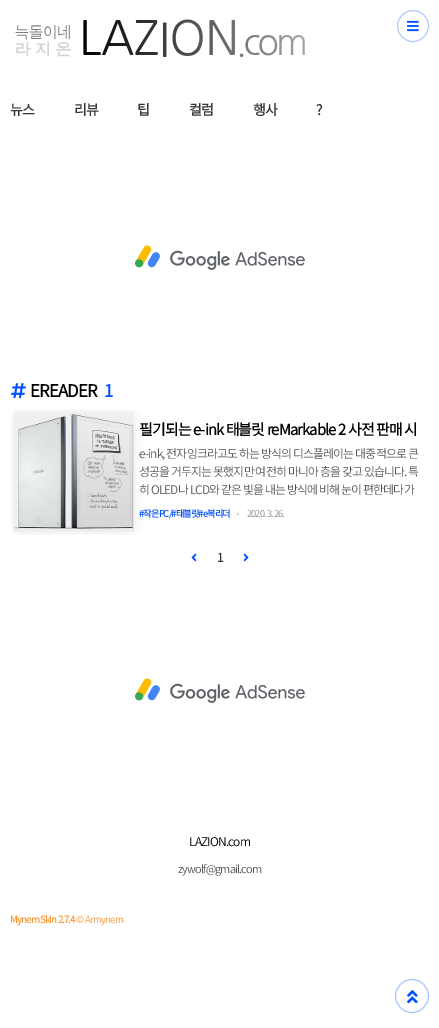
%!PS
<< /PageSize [439 1028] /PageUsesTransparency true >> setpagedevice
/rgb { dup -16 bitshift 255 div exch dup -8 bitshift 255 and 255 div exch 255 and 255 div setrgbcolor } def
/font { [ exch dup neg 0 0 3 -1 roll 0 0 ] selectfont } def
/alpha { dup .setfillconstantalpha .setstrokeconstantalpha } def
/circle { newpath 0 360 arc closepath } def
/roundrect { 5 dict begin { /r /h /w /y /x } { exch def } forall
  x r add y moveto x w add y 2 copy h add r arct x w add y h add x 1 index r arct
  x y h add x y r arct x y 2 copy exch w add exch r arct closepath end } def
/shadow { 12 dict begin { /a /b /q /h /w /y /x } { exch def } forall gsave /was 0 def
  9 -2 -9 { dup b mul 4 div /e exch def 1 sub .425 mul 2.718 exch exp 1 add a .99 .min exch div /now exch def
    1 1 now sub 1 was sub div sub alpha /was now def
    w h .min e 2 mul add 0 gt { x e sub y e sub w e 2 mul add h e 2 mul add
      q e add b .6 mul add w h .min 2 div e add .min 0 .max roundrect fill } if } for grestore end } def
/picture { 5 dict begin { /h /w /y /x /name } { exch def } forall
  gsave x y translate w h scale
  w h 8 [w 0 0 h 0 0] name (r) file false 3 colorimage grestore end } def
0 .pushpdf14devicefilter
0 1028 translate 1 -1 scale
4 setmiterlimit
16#FFFFFF rgb
0 0 439 1028 rectfill
16#AAC5FF rgb
413 26 15.5 circle stroke
0.1 alpha
16#FFFFFF rgb
413 26 16 circle fill
1 alpha
(pic1.raw) 407 20 12 12 picture
(pic2.raw) 15 19 290 38 picture
/NotoSansKR-Bold 14 font
16#353535 rgb
10 115 moveto -0.85 0 (뉴스) ashow
74 115 moveto -0.85 0 (리뷰) ashow
137 115 moveto -0.85 0 (팁) ashow
189 115 moveto -0.85 0 (컬럼) ashow
253 115 moveto -0.85 0 (행사) ashow
316 115 moveto -0.85 0 (?) ashow
(pic3.raw) 135 245 170 25 picture
(pic4.raw) 11 383 15 16 picture
/NotoSansKR-Bold 17 font
16#000000 rgb
30 397 moveto -0.85 0 (EREADER) ashow
16#0150FE rgb
104 397 moveto -0.85 0 (1) ashow
gsave
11 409 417 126 rectclip
16#DDDDDD rgb
18 416 112 112 0 8 1 shadow
grestore
(pic5.raw) 14 412 120 120 picture
/NotoSansKR-Bold 14.9 font
16#000000 rgb
139 435 moveto -0.85 0 (필기되는 e-ink 태블릿 reMarkable 2 사전 판매 시) ashow
/NotoSansKR-Light 11.9 font
16#555555 rgb
139 458 moveto -0.85 0 (e-ink, 전자잉크라고도 하는 방식의 디스플레이는 대중적으로 큰) ashow
139 476 moveto -0.85 0 (성공을 거두지는 못했지만 여전히 마니아 층을 갖고 있습니다. 특) ashow
139 494 moveto -0.85 0 (히 OLED나 LCD와 같은 빛을 내는 방식에 비해 눈이 편한데다가) ashow
/NotoSansKR-Bold 9.25 font
16#0150FE rgb
139 517 moveto -0.85 0 (#작은PC/#태블릿#e북리더) ashow
16#D2D2D2 rgb
237 513 2 2 rectfill
/NotoSansKR-Light 9.25 font
16#888888 rgb
247 517 moveto -0.85 0 (2020. 3. 26.) ashow
(pic6.raw) 191 553 6 9 picture
/NotoSansKR-Bold 12 font
16#353535 rgb
217 562 moveto -0.85 0 (1) ashow
(pic7.raw) 243 553 6 9 picture
(pic3.raw) 135 678 170 25 picture
/NotoSansKR-Light 12 font
16#000000 rgb
189 846 moveto -0.85 0 (LAZION.com) ashow
/NotoSansKR-Light 11 font
16#555555 rgb
178 873 moveto -0.85 0 (zywolf@gmail.com) ashow
/NotoSansKR-Bold 9.75 font
16#FF9533 rgb
10 923 moveto -0.85 0 (Mynem Skin 2.7.4) ashow
/NotoSansKR-Regular 9.75 font
76 923 moveto -0.85 0 (©) ashow
/NotoSansKR-Light 9.75 font
85 923 moveto -0.85 0 (Armynem) ashow
16#AAC5FF rgb
412 996 16.5 circle stroke
(pic8.raw) 407 990 11 14 picture
.poppdf14devicefilter showpage
